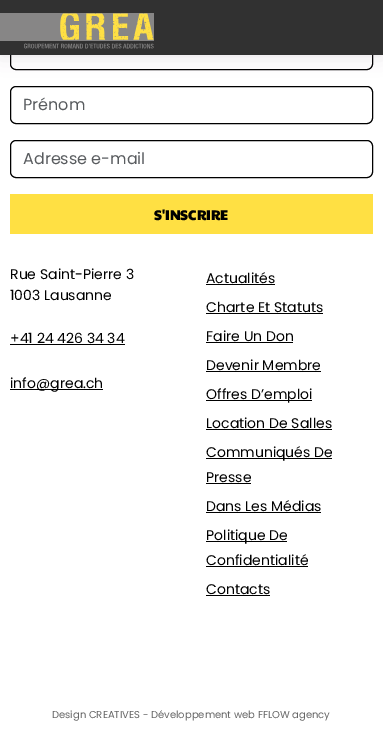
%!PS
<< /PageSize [383 741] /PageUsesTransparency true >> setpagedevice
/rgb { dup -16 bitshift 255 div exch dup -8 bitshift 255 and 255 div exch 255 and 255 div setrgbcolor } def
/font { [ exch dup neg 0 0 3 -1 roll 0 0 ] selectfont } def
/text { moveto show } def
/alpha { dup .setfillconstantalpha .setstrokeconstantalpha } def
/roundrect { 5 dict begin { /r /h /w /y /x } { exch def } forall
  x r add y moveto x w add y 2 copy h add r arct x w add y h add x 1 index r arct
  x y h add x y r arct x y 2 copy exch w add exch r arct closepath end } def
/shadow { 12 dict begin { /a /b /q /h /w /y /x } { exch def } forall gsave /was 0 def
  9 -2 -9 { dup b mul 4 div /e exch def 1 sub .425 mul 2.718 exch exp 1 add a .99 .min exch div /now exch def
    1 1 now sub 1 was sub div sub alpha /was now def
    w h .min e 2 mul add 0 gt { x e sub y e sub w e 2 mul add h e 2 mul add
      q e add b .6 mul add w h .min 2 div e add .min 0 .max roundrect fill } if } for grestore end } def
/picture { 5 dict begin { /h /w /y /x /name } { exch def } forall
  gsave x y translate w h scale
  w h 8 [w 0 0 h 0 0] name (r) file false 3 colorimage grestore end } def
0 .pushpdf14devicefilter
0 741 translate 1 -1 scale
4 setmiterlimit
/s1 { /Poppins-Regular 16 font 16#595C5F rgb } def
/s2 { /PaytoneOne-Regular 14 font 16#000000 rgb } def
/s3 { /Poppins-Regular 14 font 16#000000 rgb } def
/s4 { /Poppins-Regular 10 font 16#666666 rgb } def
16#FFFFFF rgb
0 0 383 741 rectfill
16#000000 rgb
10.5 32.5 362 37 5.5 roundrect stroke
16#5A3B5D rgb
0 0 383 55 0 10 0.15 shadow
16#313131 rgb
0 0 383 55 rectfill
16#878686 rgb
0 13 154 28 rectfill
(pic1.raw) 24 13 130 36 picture
16#000000 rgb
10.5 86.5 362 37 5.5 roundrect stroke
s1
(Prénom) 23 110 text
16#000000 rgb
10.5 140.5 362 37 5.5 roundrect stroke
s1
(Adresse e-mail) 23 164 text
16#FFE043 rgb
10 194 363 40 rectfill
s2
(S'INSCRIRE) 154 220 text
s3
(Rue Saint-Pierre 3) 10 279 text
(1003 Lausanne) 10 300 text
(+41 24 426 34 34) 10 343 text
10 344 115 1 rectfill
10 389 93 1 rectfill
(info@grea.ch) 10 388 text
(Actualités) 206 283 text
206 284 69 1 rectfill
(Charte Et Statuts) 206 312 text
206 313 117 1 rectfill
(Faire Un Don) 206 341 text
206 342 87 1 rectfill
(Devenir Membre) 206 370 text
206 371 115 1 rectfill
206 400 106 1 rectfill
(Offres D’emploi) 206 399 text
(Location De Salles) 206 428 text
206 429 126 1 rectfill
206 458 126 1 rectfill
(Communiqués De) 206 457 text
(Presse) 206 482 text
206 483 45 1 rectfill
(Dans Les Médias) 206 511 text
206 512 115 1 rectfill
206 541 81 1 rectfill
(Politique De) 206 540 text
(Confidentialité) 206 565 text
206 566 102 1 rectfill
(Contacts) 206 594 text
206 595 64 1 rectfill
s4
(Design CREATIVES - Développement web FFLOW agency) 52 718 text
.poppdf14devicefilter showpage
